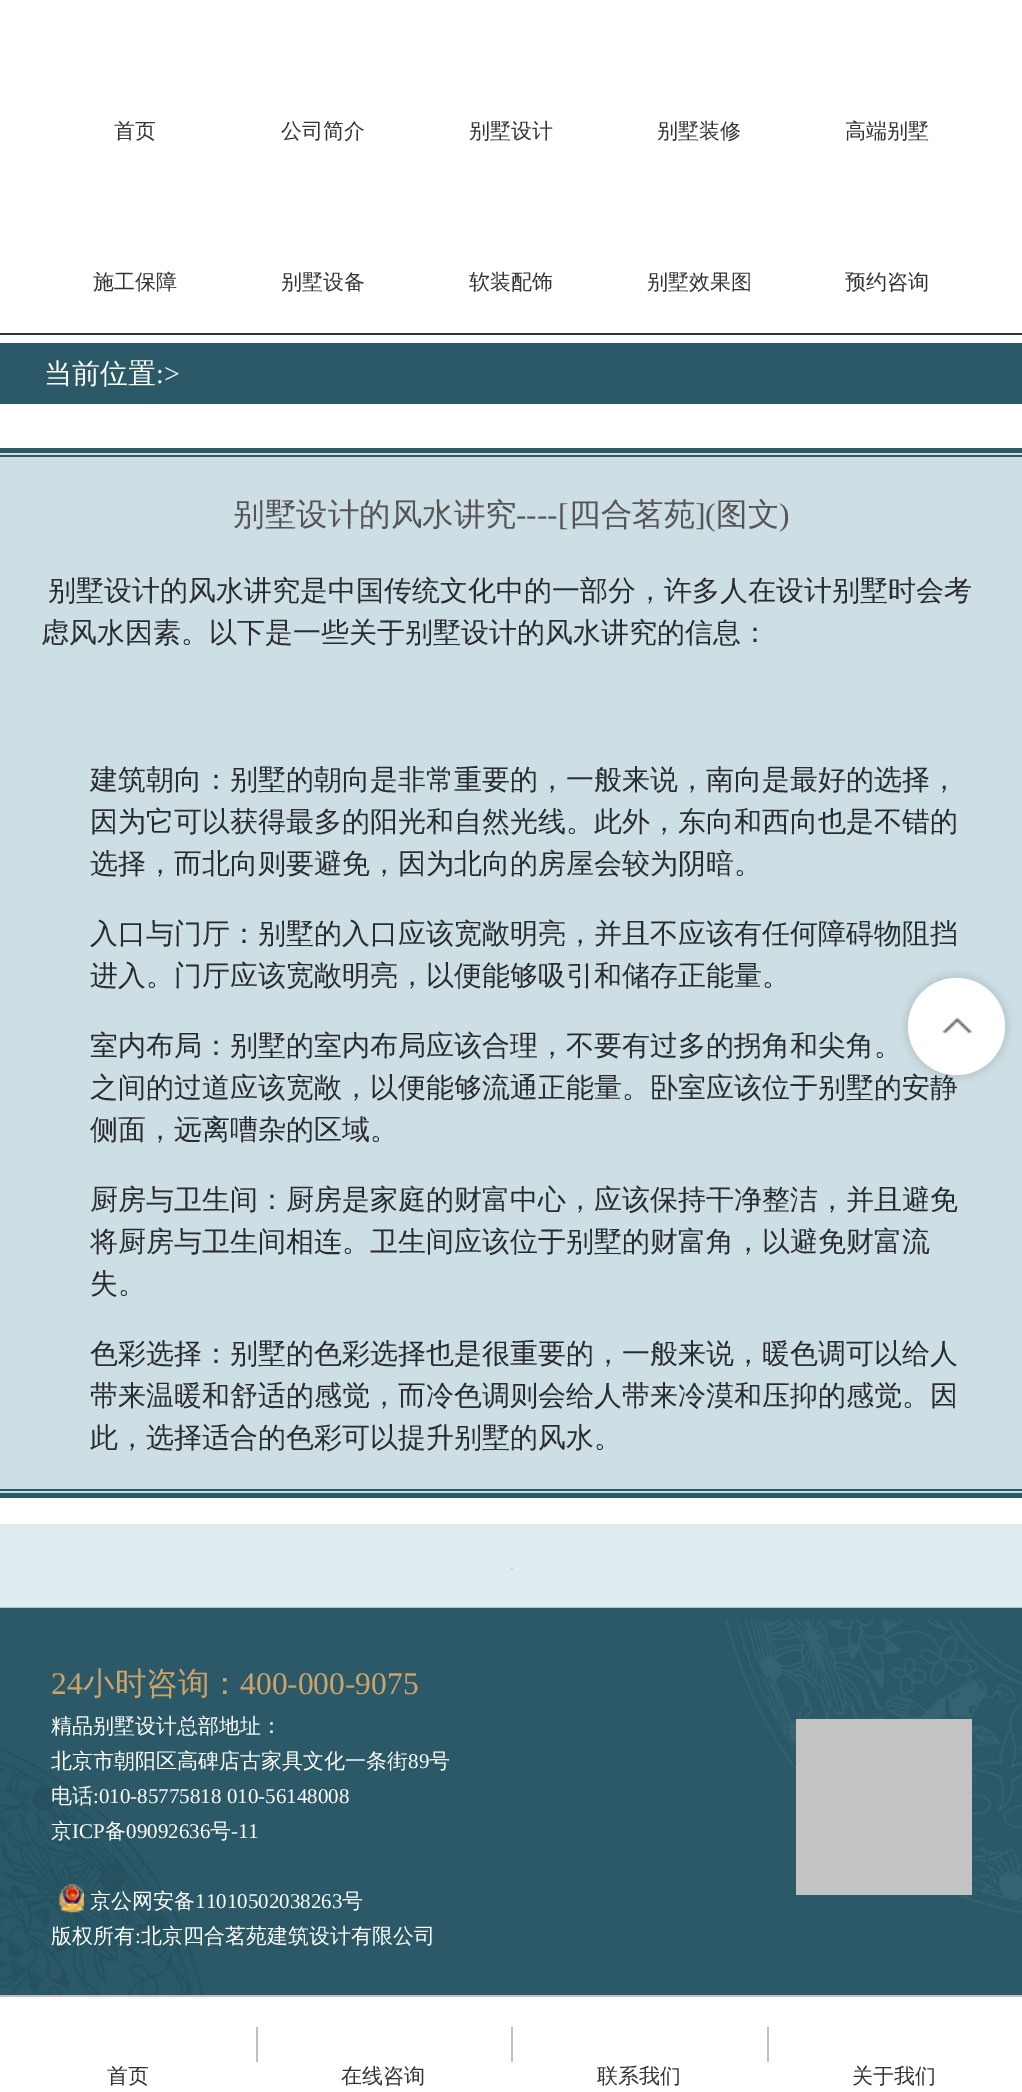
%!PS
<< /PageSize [1022 2092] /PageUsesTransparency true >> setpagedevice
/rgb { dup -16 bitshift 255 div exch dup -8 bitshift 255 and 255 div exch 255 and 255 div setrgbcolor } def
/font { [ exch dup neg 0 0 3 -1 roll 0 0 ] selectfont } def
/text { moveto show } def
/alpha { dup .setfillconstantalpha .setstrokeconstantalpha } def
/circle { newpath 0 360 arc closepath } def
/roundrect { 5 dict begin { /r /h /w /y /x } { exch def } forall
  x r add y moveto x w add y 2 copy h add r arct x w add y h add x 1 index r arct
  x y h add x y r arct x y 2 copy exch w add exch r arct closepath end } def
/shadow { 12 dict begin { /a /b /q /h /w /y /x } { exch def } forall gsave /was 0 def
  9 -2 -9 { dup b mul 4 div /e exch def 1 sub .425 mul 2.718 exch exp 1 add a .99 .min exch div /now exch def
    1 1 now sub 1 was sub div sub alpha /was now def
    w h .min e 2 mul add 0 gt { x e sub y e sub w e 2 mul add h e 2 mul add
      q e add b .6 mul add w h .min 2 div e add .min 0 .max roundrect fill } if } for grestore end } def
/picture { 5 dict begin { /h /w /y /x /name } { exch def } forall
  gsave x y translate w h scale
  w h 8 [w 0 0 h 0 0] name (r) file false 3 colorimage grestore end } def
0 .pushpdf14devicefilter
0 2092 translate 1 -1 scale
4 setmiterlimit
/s1 { /WenQuanYiZenHei-Medium 21 font 16#333333 rgb } def
/s2 { /WenQuanYiZenHei-Medium 28 font 16#FFFFFF rgb } def
/s3 { /LiberationSerif-Regular 28 font 16#FFFFFF rgb } def
/s4 { /WenQuanYiZenHei-Medium 31.5 font 16#555555 rgb } def
/s5 { /LiberationSerif-Regular 31.5 font 16#555555 rgb } def
/s6 { /WenQuanYiZenHei-Medium 28 font 16#292C2E rgb } def
/s7 { /LiberationSerif-Regular 31.5 font 16#CEA369 rgb } def
/s8 { /WenQuanYiZenHei-Medium 31.5 font 16#CEA369 rgb } def
/s9 { /WenQuanYiZenHei-Medium 21 font 16#FFFFFF rgb } def
/s10 { /LiberationSerif-Regular 21 font 16#FFFFFF rgb } def
16#FFFFFF rgb
0 0 1022 2092 rectfill
s1
(首页) 114 138 text
(公司简介) 281 138 text
(别墅设计) 469 138 text
(别墅装修) 657 138 text
(高端别墅) 845 138 text
(施工保障) 93 289 text
(别墅设备) 281 289 text
(软装配饰) 469 289 text
(别墅效果图) 647 289 text
(预约咨询) 845 289 text
0 333 1022 2 rectfill
16#2B5968 rgb
0 343 1022 61 rectfill
s2
(当前位置) 44 383 text
s3
(:>) 156 383 text
16#CDDEE4 rgb
0 453 1022 1040 rectfill
16#2B5968 rgb
0 448 1022 5 rectfill
0 1493 1022 5 rectfill
0 455 1022 2 rectfill
s4
(别墅设计的风水讲究) 233 525 text
s5
(----[) 516 525 text
s4
(四合茗苑) 569 525 text
s5
(]\() 695 525 text
s4
(图文) 716 525 text
s5
(\)) 779 525 text
s6
(别墅设计的风水讲究是中国传统文化中的一部分，许多人在设计别墅时会考) 48 600 text
(虑风水因素。以下是一些关于别墅设计的风水讲究的信息：) 41 642 text
(建筑朝向：别墅的朝向是非常重要的，一般来说，南向是最好的选择，) 90 789 text
(因为它可以获得最多的阳光和自然光线。此外，东向和西向也是不错的) 90 831 text
(选择，而北向则要避免，因为北向的房屋会较为阴暗。) 90 873 text
(入口与门厅：别墅的入口应该宽敞明亮，并且不应该有任何障碍物阻挡) 90 943 text
(进入。门厅应该宽敞明亮，以便能够吸引和储存正能量。) 90 985 text
(室内布局：别墅的室内布局应该合理，不要有过多的拐角和尖角。) 90 1055 text
(之间的过道应该宽敞，以便能够流通正能量。卧室应该位于别墅的安静) 90 1097 text
(侧面，远离嘈杂的区域。) 90 1139 text
(厨房与卫生间：厨房是家庭的财富中心，应该保持干净整洁，并且避免) 90 1209 text
(将厨房与卫生间相连。卫生间应该位于别墅的财富角，以避免财富流) 90 1251 text
(失。) 90 1293 text
(色彩选择：别墅的色彩选择也是很重要的，一般来说，暖色调可以给人) 90 1363 text
(带来温暖和舒适的感觉，而冷色调则会给人带来冷漠和压抑的感觉。因) 90 1405 text
(此，选择适合的色彩可以提升别墅的风水。) 90 1447 text
16#2B5968 rgb
0 1489 1022 2 rectfill
16#000000 rgb
905 975 103 103 51.5 3.5 0.1 shadow
16#FFFFFF rgb
956.5 1026.5 48.5 circle fill
(pic1.raw) 942 1017 31 17 picture
16#E0ECF2 rgb
0 1524 1022 84 rectfill
(pic2.raw) 511 1567 2 3 picture
(pic3.raw) 0 1607 1022 388 picture
s7
(24) 51 1694 text
s8
(小时咨询：) 83 1694 text
s7
(400-000-9075) 240 1694 text
s9
(精品别墅设计总部地址：) 51 1733 text
(北京市朝阳区高碑店古家具文化一条街) 51 1768 text
s10
(89) 408 1768 text
s9
(号) 429 1768 text
(电话) 51 1803 text
s10
(:010-85775818 010-56148008) 93 1803 text
s9
(京) 51 1838 text
s10
(ICP) 72 1838 text
s9
(备) 105 1838 text
s10
(09092636) 126 1838 text
s9
(号) 210 1838 text
s10
(-11) 231 1838 text
(pic4.raw) 59 1884 25 29 picture
s9
(京公网安备) 90 1908 text
s10
(11010502038263) 195 1908 text
s9
(号) 342 1908 text
(版权所有) 51 1943 text
s10
(:) 135 1943 text
s9
(北京四合茗苑建筑设计有限公司) 141 1943 text
16#C3C3C3 rgb
796 1719 176 176 rectfill
16#BFBFBF rgb
0 1995 1022 2 rectfill
s1
(首页) 107 2083 text
16#BFBFBF rgb
256 2027 2 35 rectfill
s1
(在线咨询) 341 2083 text
16#BFBFBF rgb
511 2027 2 35 rectfill
s1
(联系我们) 597 2083 text
16#BFBFBF rgb
767 2027 2 35 rectfill
s1
(关于我们) 852 2083 text
.poppdf14devicefilter showpage
